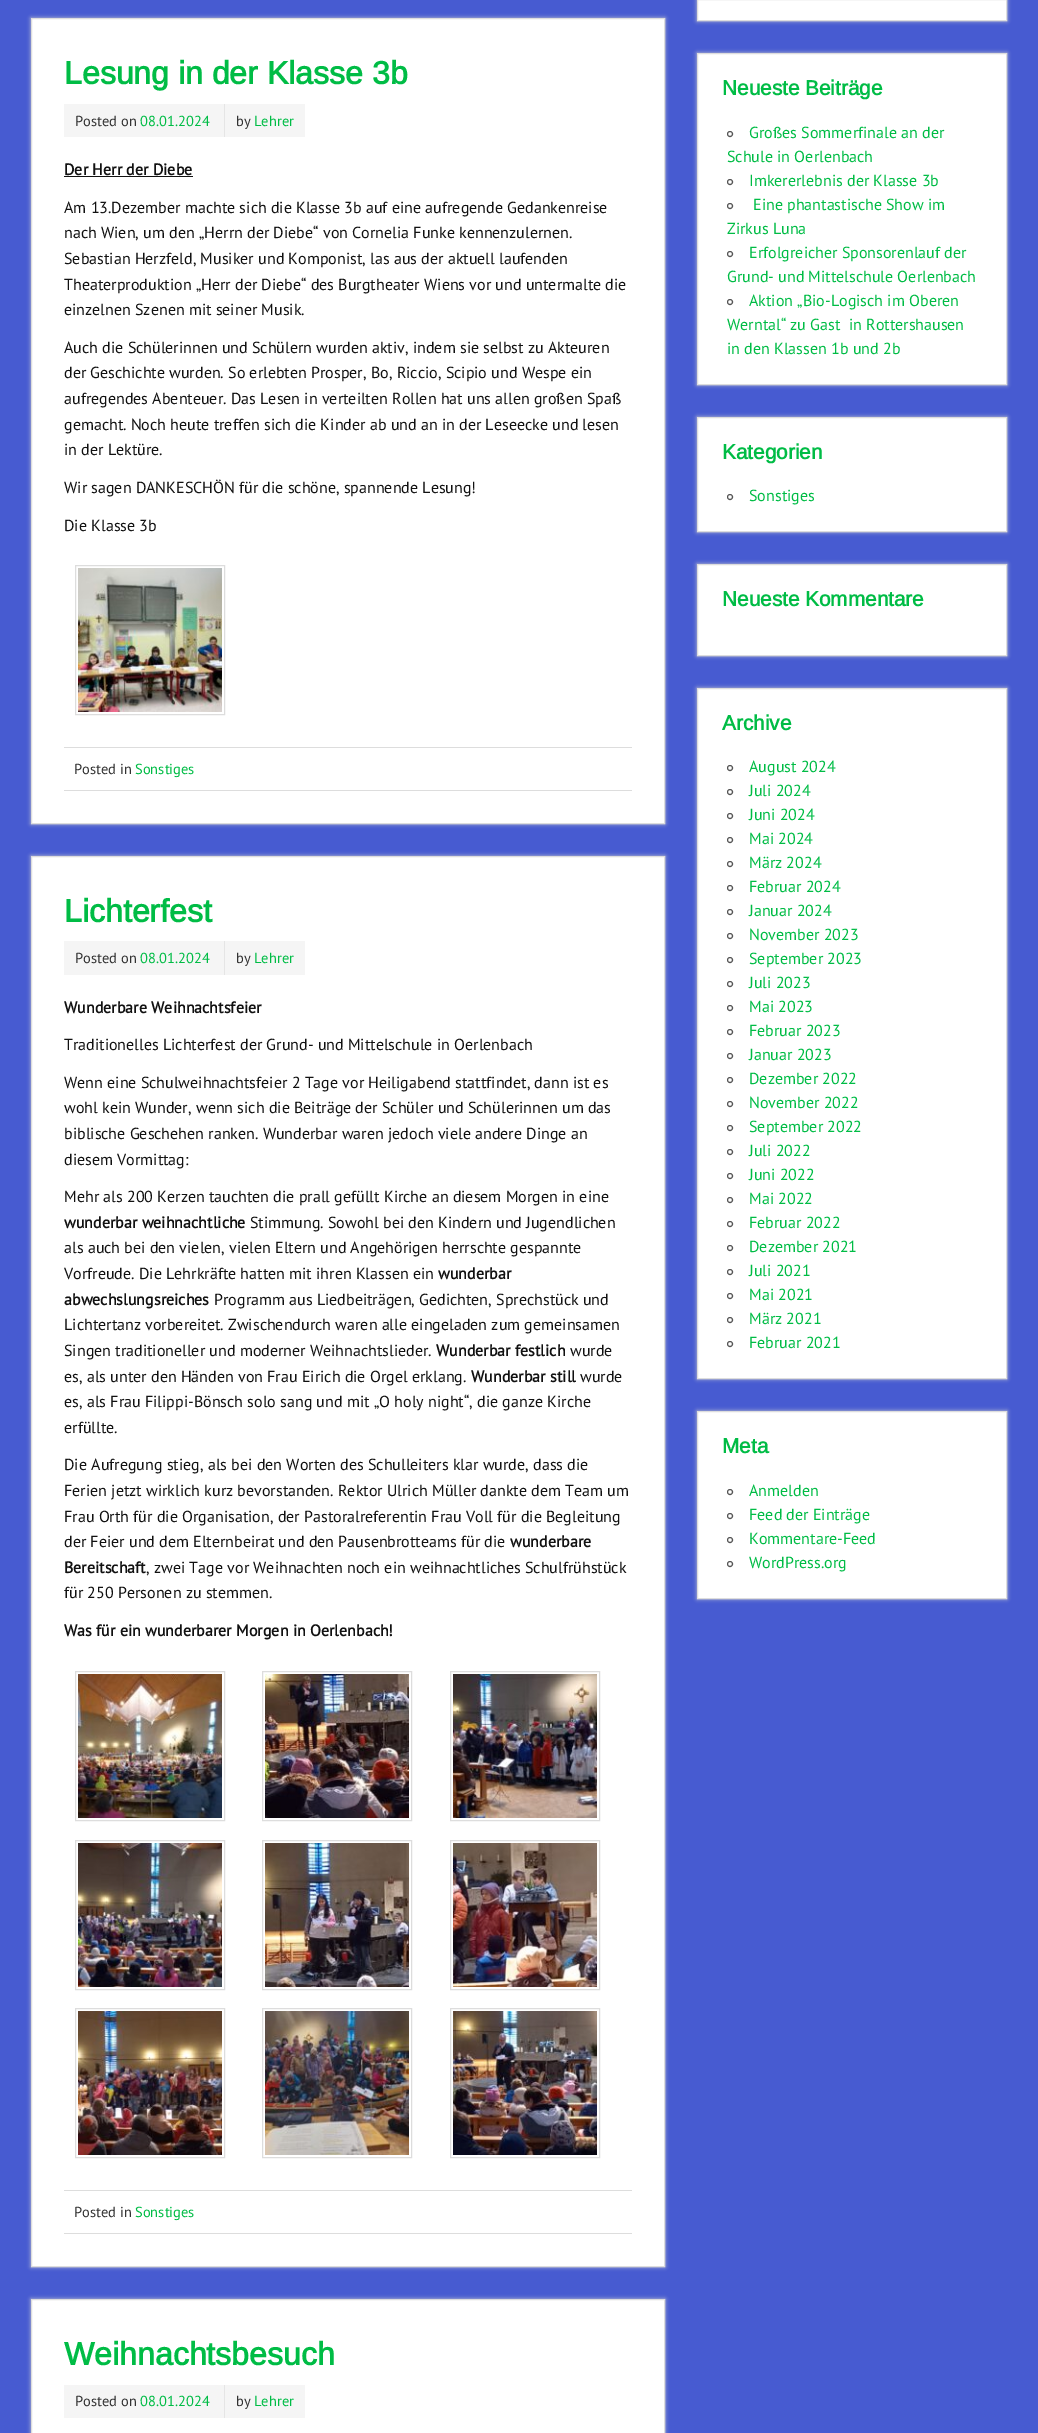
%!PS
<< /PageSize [1038 2433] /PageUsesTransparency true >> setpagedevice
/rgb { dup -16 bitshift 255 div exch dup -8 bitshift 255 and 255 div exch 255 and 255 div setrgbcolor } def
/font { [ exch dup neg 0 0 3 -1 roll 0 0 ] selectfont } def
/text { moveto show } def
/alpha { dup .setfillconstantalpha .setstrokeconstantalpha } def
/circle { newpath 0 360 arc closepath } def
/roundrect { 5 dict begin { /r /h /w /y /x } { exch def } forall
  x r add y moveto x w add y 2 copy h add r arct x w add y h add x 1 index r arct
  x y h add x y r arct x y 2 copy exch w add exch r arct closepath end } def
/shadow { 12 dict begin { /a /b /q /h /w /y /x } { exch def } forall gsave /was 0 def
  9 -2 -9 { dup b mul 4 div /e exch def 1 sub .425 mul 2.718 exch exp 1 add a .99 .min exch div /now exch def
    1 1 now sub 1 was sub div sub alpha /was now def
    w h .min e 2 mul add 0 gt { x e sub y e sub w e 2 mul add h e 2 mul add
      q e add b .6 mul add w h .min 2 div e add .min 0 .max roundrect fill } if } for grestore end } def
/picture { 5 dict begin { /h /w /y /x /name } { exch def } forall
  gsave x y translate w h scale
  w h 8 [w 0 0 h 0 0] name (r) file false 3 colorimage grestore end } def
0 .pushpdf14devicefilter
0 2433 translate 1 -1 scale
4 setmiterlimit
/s1 { /Arimo-Bold 32 font 16#00BC45 rgb } def
/s2 { /PTSans-Regular 14.5 font 16#333333 rgb } def
/s3 { /PTSans-Regular 14.5 font 16#00BC45 rgb } def
/s4 { /PTSans-Bold 16 font 16#111111 rgb } def
/s5 { /PTSans-Regular 16 font 16#111111 rgb } def
/s6 { /Arimo-Bold 20.75 font 16#00BC45 rgb } def
/s7 { /PTSans-Regular 16 font 16#00BC45 rgb } def
16#475BD1 rgb
0 0 1038 2433 rectfill
16#CCCCCC rgb
31 18 634 806 0 2 1 shadow
16#FFFFFF rgb
31.5 18.5 moveto 664.5 18.5 lineto 664.5 823.5 lineto 31.5 823.5 lineto closepath gsave fill grestore
16#DDDDDD rgb
stroke
s1
(Lesung in der Klasse 3b) 64 84 text
16#F5F5F5 rgb
64 104 241 33 rectfill
s2
(Posted on) 75 126 text
s3
(08.01.2024) 140 126 text
16#E5E5E5 rgb
224 104 1 33 rectfill
s2
(by) 236 126 text
s3
(Lehrer) 254 126 text
s4
(Der Herr der Diebe) 64 175 text
64 176 129 1 rectfill
s5
(Am 13.Dezember machte sich die Klasse 3b auf eine aufregende Gedankenreise) 64 213 text
(nach Wien, um den „Herrn der Diebe“ von Cornelia Funke kennenzulernen.) 64 238 text
(Sebastian Herzfeld, Musiker und Komponist, las aus der aktuell laufenden) 64 264 text
(Theaterproduktion „Herr der Diebe“ des Burgtheater Wiens vor und untermalte die) 64 290 text
(einzelnen Szenen mit seiner Musik.) 64 315 text
(Auch die Schülerinnen und Schülern wurden aktiv, indem sie selbst zu Akteuren) 64 353 text
(der Geschichte wurden. So erlebten Prosper, Bo, Riccio, Scipio und Wespe ein) 64 378 text
(aufregendes Abenteuer. Das Lesen in verteilten Rollen hat uns allen großen Spaß) 64 404 text
(gemacht. Noch heute treffen sich die Kinder ab und an in der Leseecke und lesen) 64 430 text
(in der Lektüre.) 64 455 text
(Wir sagen DANKESCHÖN für die schöne, spannende Lesung!) 64 493 text
(Die Klasse 3b) 64 531 text
16#DDDDDD rgb
75.5 565.5 149 149 rectstroke
(pic1.raw) 78 568 144 144 picture
64 747 568 1 rectfill
64 790 568 1 rectfill
s2
(Posted in) 74 774 text
s3
(Sonstiges) 135 774 text
16#CCCCCC rgb
31 856 634 1411 0 2 1 shadow
16#FFFFFF rgb
31.5 856.5 moveto 664.5 856.5 lineto 664.5 2266.5 lineto 31.5 2266.5 lineto closepath gsave fill grestore
16#DDDDDD rgb
stroke
s1
(Lichterfest) 64 922 text
16#F5F5F5 rgb
64 941 241 34 rectfill
s2
(Posted on) 75 963 text
s3
(08.01.2024) 140 963 text
16#E5E5E5 rgb
224 941 1 34 rectfill
s2
(by) 236 963 text
s3
(Lehrer) 254 963 text
s4
(Wunderbare Weihnachtsfeier) 64 1013 text
s5
(Traditionelles Lichterfest der Grund- und Mittelschule in Oerlenbach) 64 1050 text
(Wenn eine Schulweihnachtsfeier 2 Tage vor Heiligabend stattfindet, dann ist es) 64 1088 text
(wohl kein Wunder, wenn sich die Beiträge der Schüler und Schülerinnen um das) 64 1113 text
(biblische Geschehen ranken. Wunderbar waren jedoch viele andere Dinge an) 64 1139 text
(diesem Vormittag:) 64 1165 text
(Mehr als 200 Kerzen tauchten die prall gefüllt Kirche an diesem Morgen in eine) 64 1202 text
s4
(wunderbar weihnachtliche) 64 1228 text
s5
(Stimmung. Sowohl bei den Kindern und Jugendlichen) 250 1228 text
(als auch bei den vielen, vielen Eltern und Angehörigen herrschte gespannte) 64 1253 text
(Vorfreude. Die Lehrkräfte hatten mit ihren Klassen ein) 64 1279 text
s4
(wunderbar) 438 1279 text
(abwechslungsreiches) 64 1305 text
s5
(Programm aus Liedbeiträgen, Gedichten, Sprechstück und) 214 1305 text
(Lichtertanz vorbereitet. Zwischendurch waren alle eingeladen zum gemeinsamen) 64 1330 text
(Singen traditioneller und moderner Weihnachtslieder.) 64 1356 text
s4
(Wunderbar festlich) 436 1356 text
s5
(wurde) 570 1356 text
(es, als unter den Händen von Frau Eirich die Orgel erklang.) 64 1382 text
s4
(Wunderbar still) 471 1382 text
s5
(wurde) 580 1382 text
(es, als Frau Filippi-Bönsch solo sang und mit „O holy night“, die ganze Kirche) 64 1407 text
(erfüllte.) 64 1433 text
(Die Aufregung stieg, als bei den Worten des Schulleiters klar wurde, dass die) 64 1470 text
(Ferien jetzt wirklich kurz bevorstanden. Rektor Ulrich Müller dankte dem Team um) 64 1496 text
(Frau Orth für die Organisation, der Pastoralreferentin Frau Voll für die Begleitung) 64 1522 text
(der Feier und dem Elternbeirat und den Pausenbrotteams für die) 64 1547 text
s4
(wunderbare) 510 1547 text
(Bereitschaft) 64 1573 text
s5
(, zwei Tage vor Weihnachten noch ein weihnachtliches Schulfrühstück) 146 1573 text
(für 250 Personen zu stemmen.) 64 1598 text
s4
(Was für ein wunderbarer Morgen in Oerlenbach!) 64 1636 text
16#DDDDDD rgb
75.5 1671.5 149 149 rectstroke
(pic2.raw) 78 1674 144 144 picture
262.5 1671.5 149 149 rectstroke
(pic3.raw) 265 1674 144 144 picture
450.5 1671.5 149 149 rectstroke
(pic4.raw) 453 1674 144 144 picture
75.5 1840.5 149 149 rectstroke
(pic5.raw) 78 1843 144 144 picture
262.5 1840.5 149 149 rectstroke
(pic6.raw) 265 1843 144 144 picture
450.5 1840.5 149 149 rectstroke
(pic7.raw) 453 1843 144 144 picture
75.5 2008.5 149 149 rectstroke
(pic8.raw) 78 2011 144 144 picture
262.5 2008.5 149 149 rectstroke
(pic9.raw) 265 2011 144 144 picture
450.5 2008.5 149 149 rectstroke
(pic10.raw) 453 2011 144 144 picture
64 2190 568 1 rectfill
64 2233 568 1 rectfill
s2
(Posted in) 74 2217 text
s3
(Sonstiges) 135 2217 text
16#CCCCCC rgb
31 2299 634 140 0 2 1 shadow
16#FFFFFF rgb
31.5 2299.5 moveto 664.5 2299.5 lineto 664.5 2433.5 lineto 31.5 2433.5 lineto closepath gsave fill grestore
16#DDDDDD rgb
stroke
s1
(Weihnachtsbesuch) 64 2365 text
16#F5F5F5 rgb
64 2385 241 33 rectfill
s2
(Posted on) 75 2406 text
s3
(08.01.2024) 140 2406 text
16#E5E5E5 rgb
224 2385 1 33 rectfill
s2
(by) 236 2406 text
s3
(Lehrer) 254 2406 text
16#CCCCCC rgb
697 -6 310 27 0 2 1 shadow
16#FFFFFF rgb
697.5 -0.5 moveto 1006.5 -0.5 lineto 1006.5 20.5 lineto 697.5 20.5 lineto closepath gsave fill grestore
16#DDDDDD rgb
stroke
16#CCCCCC rgb
697 53 310 332 0 2 1 shadow
16#FFFFFF rgb
697.5 53.5 moveto 1006.5 53.5 lineto 1006.5 384.5 lineto 697.5 384.5 lineto closepath gsave fill grestore
16#DDDDDD rgb
stroke
s6
(Neueste Beiträge) 722 95 text
16#555555 rgb
730 134 2.5 circle stroke
s7
(Großes Sommerfinale an der) 749 138 text
(Schule in Oerlenbach) 727 162 text
16#555555 rgb
730 182 2.5 circle stroke
s7
(Imkererlebnis der Klasse 3b) 749 186 text
16#555555 rgb
730 206 2.5 circle stroke
s7
(Eine phantastische Show im) 753 210 text
(Zirkus Luna) 727 234 text
16#555555 rgb
730 254 2.5 circle stroke
s7
(Erfolgreicher Sponsorenlauf der) 749 258 text
(Grund- und Mittelschule Oerlenbach) 727 282 text
16#555555 rgb
730 302 2.5 circle stroke
s7
(Aktion „Bio-Logisch im Oberen) 749 306 text
(Werntal“ zu Gast  in Rottershausen) 727 330 text
(in den Klassen 1b und 2b) 727 354 text
16#CCCCCC rgb
697 417 310 115 0 2 1 shadow
16#FFFFFF rgb
697.5 417.5 moveto 1006.5 417.5 lineto 1006.5 531.5 lineto 697.5 531.5 lineto closepath gsave fill grestore
16#DDDDDD rgb
stroke
s6
(Kategorien) 722 459 text
16#555555 rgb
730 497 2.5 circle stroke
s7
(Sonstiges) 749 501 text
16#CCCCCC rgb
697 564 310 92 0 2 1 shadow
16#FFFFFF rgb
697.5 564.5 moveto 1006.5 564.5 lineto 1006.5 655.5 lineto 697.5 655.5 lineto closepath gsave fill grestore
16#DDDDDD rgb
stroke
s6
(Neueste Kommentare) 722 606 text
16#CCCCCC rgb
697 688 310 691 0 2 1 shadow
16#FFFFFF rgb
697.5 688.5 moveto 1006.5 688.5 lineto 1006.5 1378.5 lineto 697.5 1378.5 lineto closepath gsave fill grestore
16#DDDDDD rgb
stroke
s6
(Archive) 722 730 text
16#555555 rgb
730 768 2.5 circle stroke
s7
(August 2024) 749 772 text
16#555555 rgb
730 792 2.5 circle stroke
s7
(Juli 2024) 749 796 text
16#555555 rgb
730 816 2.5 circle stroke
s7
(Juni 2024) 749 820 text
16#555555 rgb
730 840 2.5 circle stroke
s7
(Mai 2024) 749 844 text
16#555555 rgb
730 864 2.5 circle stroke
s7
(März 2024) 749 868 text
16#555555 rgb
730 888 2.5 circle stroke
s7
(Februar 2024) 749 892 text
16#555555 rgb
730 912 2.5 circle stroke
s7
(Januar 2024) 749 916 text
16#555555 rgb
730 936 2.5 circle stroke
s7
(November 2023) 749 940 text
16#555555 rgb
730 960 2.5 circle stroke
s7
(September 2023) 749 964 text
16#555555 rgb
730 984 2.5 circle stroke
s7
(Juli 2023) 749 988 text
16#555555 rgb
730 1008 2.5 circle stroke
s7
(Mai 2023) 749 1012 text
16#555555 rgb
730 1032 2.5 circle stroke
s7
(Februar 2023) 749 1036 text
16#555555 rgb
730 1056 2.5 circle stroke
s7
(Januar 2023) 749 1060 text
16#555555 rgb
730 1080 2.5 circle stroke
s7
(Dezember 2022) 749 1084 text
16#555555 rgb
730 1104 2.5 circle stroke
s7
(November 2022) 749 1108 text
16#555555 rgb
730 1128 2.5 circle stroke
s7
(September 2022) 749 1132 text
16#555555 rgb
730 1152 2.5 circle stroke
s7
(Juli 2022) 749 1156 text
16#555555 rgb
730 1176 2.5 circle stroke
s7
(Juni 2022) 749 1180 text
16#555555 rgb
730 1200 2.5 circle stroke
s7
(Mai 2022) 749 1204 text
16#555555 rgb
730 1224 2.5 circle stroke
s7
(Februar 2022) 749 1228 text
16#555555 rgb
730 1248 2.5 circle stroke
s7
(Dezember 2021) 749 1252 text
16#555555 rgb
730 1272 2.5 circle stroke
s7
(Juli 2021) 749 1276 text
16#555555 rgb
730 1296 2.5 circle stroke
s7
(Mai 2021) 749 1300 text
16#555555 rgb
730 1320 2.5 circle stroke
s7
(März 2021) 749 1324 text
16#555555 rgb
730 1344 2.5 circle stroke
s7
(Februar 2021) 749 1348 text
16#CCCCCC rgb
697 1411 310 188 0 2 1 shadow
16#FFFFFF rgb
697.5 1411.5 moveto 1006.5 1411.5 lineto 1006.5 1598.5 lineto 697.5 1598.5 lineto closepath gsave fill grestore
16#DDDDDD rgb
stroke
s6
(Meta) 722 1453 text
16#555555 rgb
730 1492 2.5 circle stroke
s7
(Anmelden) 749 1496 text
16#555555 rgb
730 1516 2.5 circle stroke
s7
(Feed der Einträge) 749 1520 text
16#555555 rgb
730 1540 2.5 circle stroke
s7
(Kommentare-Feed) 749 1544 text
16#555555 rgb
730 1564 2.5 circle stroke
s7
(WordPress.org) 749 1568 text
.poppdf14devicefilter showpage
